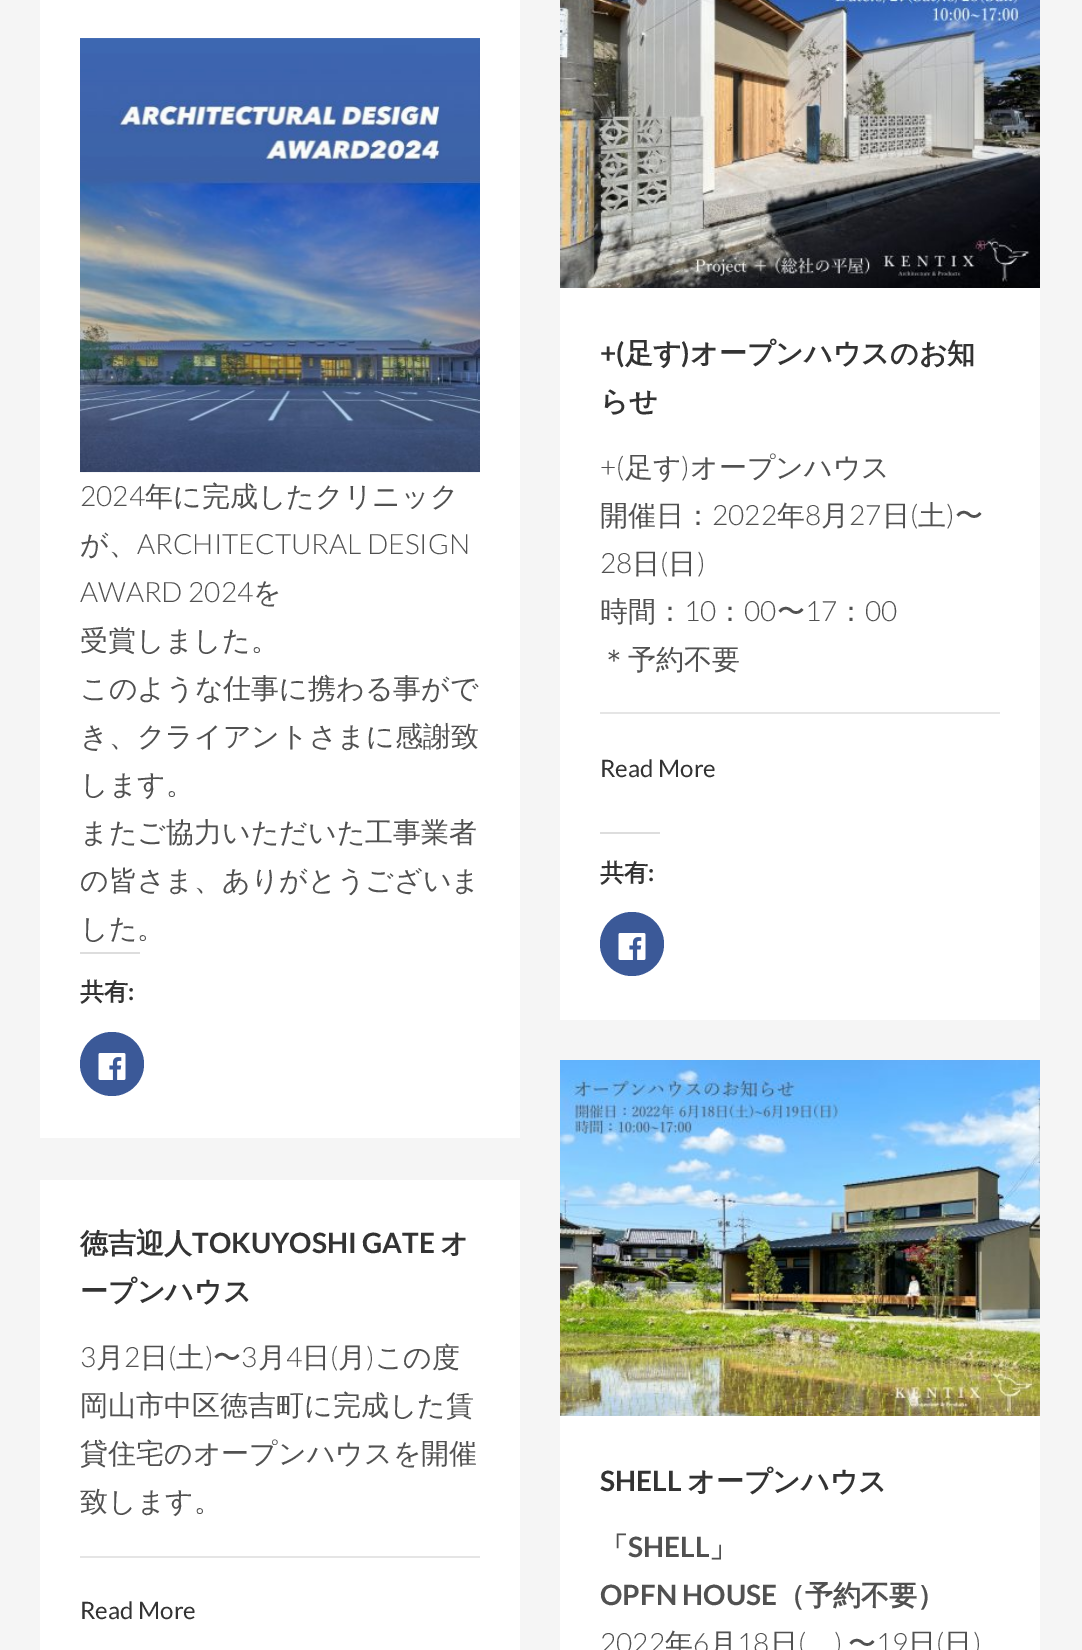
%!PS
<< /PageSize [1082 1650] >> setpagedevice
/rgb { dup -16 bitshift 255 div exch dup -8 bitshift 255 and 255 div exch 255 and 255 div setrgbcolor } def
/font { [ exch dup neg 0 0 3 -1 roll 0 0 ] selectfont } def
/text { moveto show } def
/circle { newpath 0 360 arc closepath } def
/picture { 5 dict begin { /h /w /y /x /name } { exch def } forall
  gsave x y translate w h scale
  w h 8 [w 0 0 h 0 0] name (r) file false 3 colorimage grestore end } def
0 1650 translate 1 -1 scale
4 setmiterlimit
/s1 { /Lato-Light 28 font 16#515151 rgb } def
/s2 { /WenQuanYiZenHei-Medium 28 font 16#515151 rgb } def
/s3 { /WenQuanYiZenHei-Bold 24 font 16#333333 rgb } def
/s4 { /Lato-Bold 24 font 16#333333 rgb } def
/s5 { /Lato-Bold 28 font 16#333333 rgb } def
/s6 { /WenQuanYiZenHei-Bold 28 font 16#333333 rgb } def
/s7 { /Lato-Regular 24 font 16#333333 rgb } def
/s8 { /WenQuanYiZenHei-Bold 28 font 16#515151 rgb } def
/s9 { /Lato-Bold 28 font 16#515151 rgb } def
16#F5F5F5 rgb
0 0 1082 1650 rectfill
16#FFFFFF rgb
40 0 480 1138 rectfill
(pic1.raw) 80 38 400 435 picture
s1
(2024) 80 506 text
s2
(年に完成したクリニック) 145 506 text
(が、) 80 554 text
s1
(ARCHITECTURAL DESIGN) 137 554 text
(AWARD 2024) 80 602 text
s2
(を) 253 602 text
(受賞しました。) 80 650 text
(このような仕事に携わる事がで) 80 698 text
(き、クライアントさまに感謝致) 80 746 text
(します。) 80 794 text
(またご協力いただいた工事業者) 80 842 text
(の皆さま、ありがとうございま) 80 890 text
(した。) 80 938 text
16#DDDDDD rgb
80 952 60 2 rectfill
s3
(共有) 80 1000 text
s4
(:) 128 1000 text
16#3B5998 rgb
112 1064 32 circle fill
(pic2.raw) 98 1053 28 27 picture
16#FFFFFF rgb
560 288 480 732 rectfill
(pic3.raw) 560 0 480 288 picture
s5
(+\() 600 363 text
s6
(足す オープンハウスのお知) 625 363 text
s5
(\)) 681 363 text
s6
(らせ) 600 411 text
s1
(+\() 600 477 text
s2
(足す オープンハウス) 625 477 text
s1
(\)) 681 477 text
s2
(開催日：) 600 525 text
(年) 777 525 text
(月) 821 525 text
(日 土 〜) 882 525 text
s1
(2022) 712 525 text
(8) 805 525 text
(27) 849 525 text
(\() 910 525 text
(\)) 946 525 text
s2
(日 日) 632 573 text
s1
(28) 600 573 text
(\() 660 573 text
(\)) 697 573 text
s2
(時間：) 600 621 text
s1
(10) 684 621 text
s2
(：) 716 621 text
s1
(00) 744 621 text
s2
(〜) 777 621 text
s1
(17) 805 621 text
s2
(：) 837 621 text
s1
(00) 865 621 text
s2
(＊予約不要) 600 669 text
16#E5E5E5 rgb
600 712 400 2 rectfill
s7
(Read More) 600 777 text
16#DDDDDD rgb
600 832 60 2 rectfill
s3
(共有) 600 881 text
s4
(:) 648 881 text
16#3B5998 rgb
632 944 32 circle fill
(pic2.raw) 618 933 28 27 picture
16#FFFFFF rgb
40 1180 480 470 rectfill
s6
(徳吉迎人) 80 1253 text
s5
(TOKUYOSHI GATE) 192 1253 text
s6
(オ) 440 1253 text
(ープンハウス) 80 1301 text
s2
(月) 96 1367 text
(日 土 〜) 140 1367 text
(日 月 この度) 302 1367 text
s1
(3) 80 1367 text
(2) 124 1367 text
(\() 168 1367 text
(\)) 205 1367 text
(3) 241 1367 text
s2
(月) 258 1367 text
s1
(4) 286 1367 text
(\() 330 1367 text
(\)) 366 1367 text
s2
(岡山市中区徳吉町に完成した賃) 80 1415 text
(貸住宅のオープンハウスを開催) 80 1463 text
(致します。) 80 1511 text
16#E5E5E5 rgb
80 1556 400 2 rectfill
s7
(Read More) 80 1619 text
16#FFFFFF rgb
560 1416 480 234 rectfill
(pic4.raw) 560 1060 480 356 picture
s5
(SHELL) 600 1491 text
s6
(オープンハウス) 687 1491 text
s8
(「) 600 1557 text
s9
(SHELL) 628 1557 text
s8
(」) 709 1557 text
s9
(OPFN HOUSE) 600 1605 text
s8
(（予約不要）) 777 1605 text
s2
(年) 665 1653 text
(月) 709 1653 text
(日) 770 1653 text
s1
(\() 798 1653 text
(\)) 834 1653 text
s2
(日 日) 908 1653 text
s1
(2022) 600 1653 text
(6) 693 1653 text
(18) 737 1653 text
s2
(〜) 848 1653 text
s1
(19) 876 1653 text
(\() 936 1653 text
(\)) 973 1653 text
showpage
